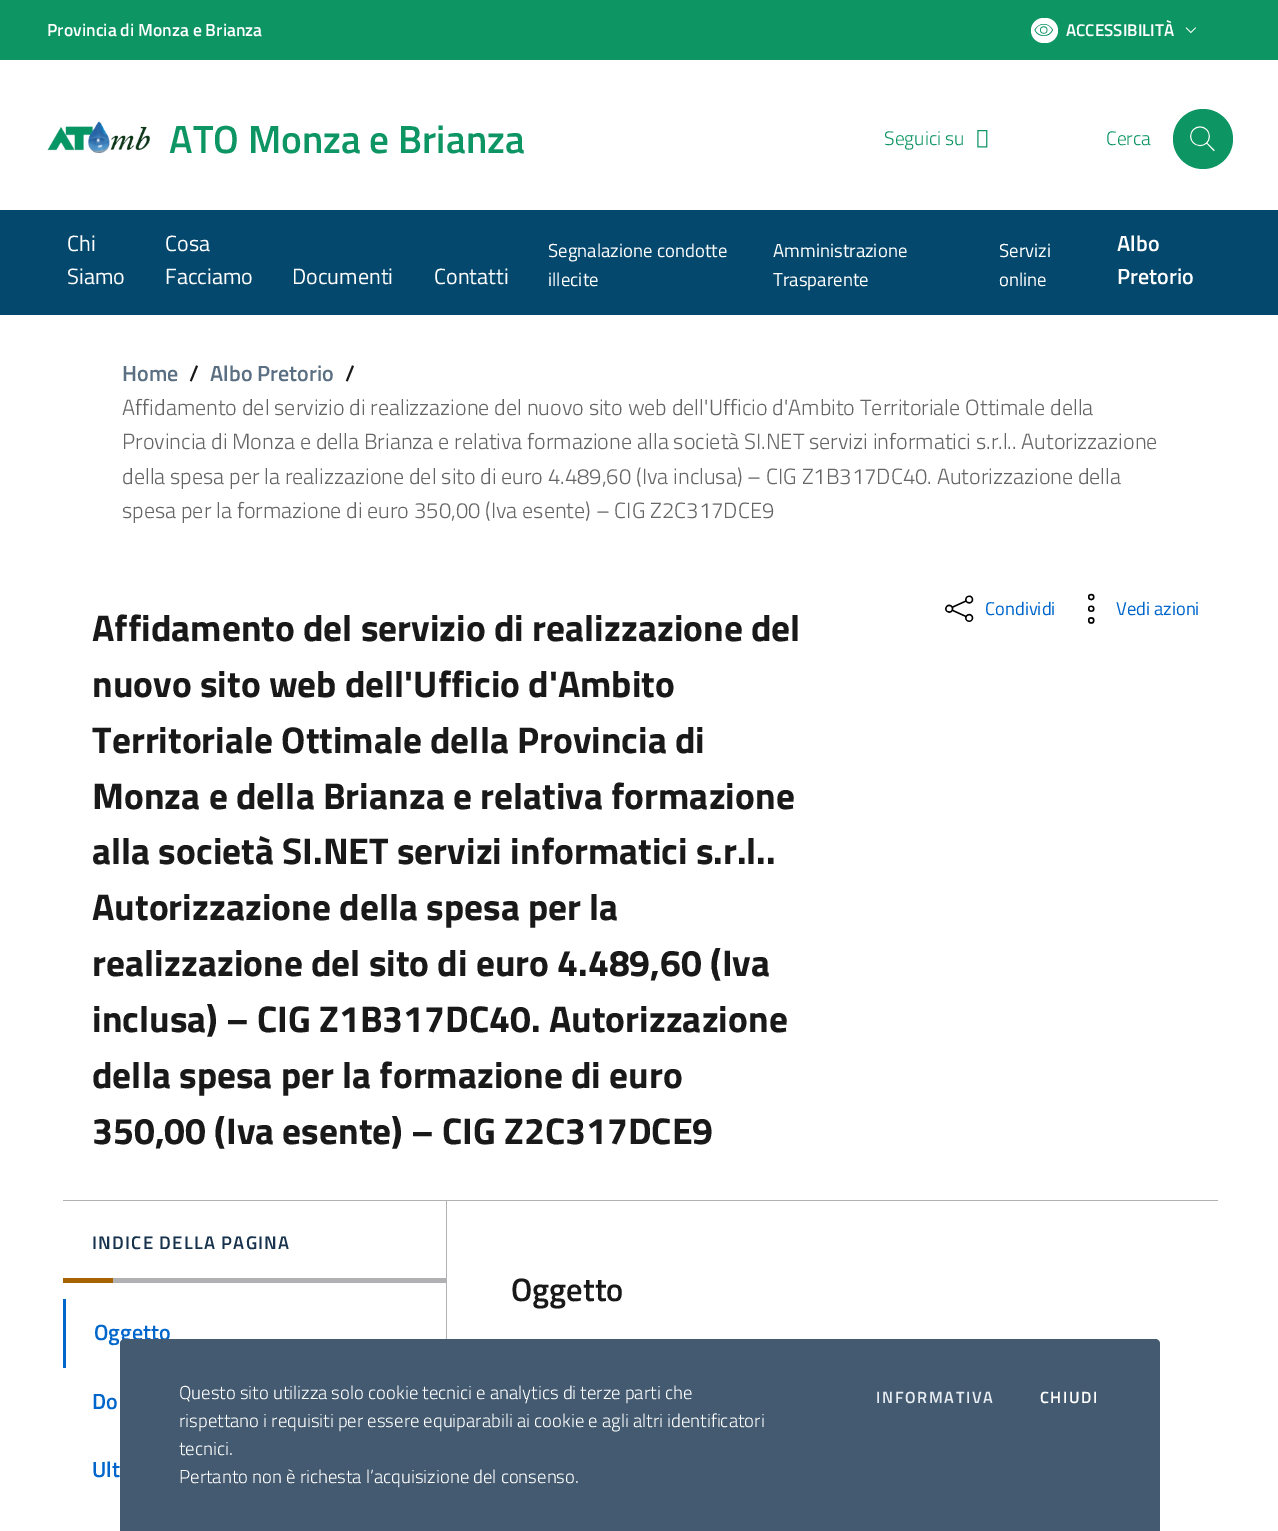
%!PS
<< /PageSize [1278 1531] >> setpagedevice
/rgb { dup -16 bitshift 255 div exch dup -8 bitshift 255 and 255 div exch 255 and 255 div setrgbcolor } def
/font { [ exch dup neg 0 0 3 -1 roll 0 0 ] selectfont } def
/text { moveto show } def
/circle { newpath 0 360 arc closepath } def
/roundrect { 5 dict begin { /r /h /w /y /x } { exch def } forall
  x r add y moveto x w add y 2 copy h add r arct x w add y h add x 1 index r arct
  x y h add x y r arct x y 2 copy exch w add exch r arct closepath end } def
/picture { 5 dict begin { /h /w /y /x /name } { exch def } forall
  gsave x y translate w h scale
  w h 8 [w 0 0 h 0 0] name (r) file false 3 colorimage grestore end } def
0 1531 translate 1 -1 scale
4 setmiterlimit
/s1 { /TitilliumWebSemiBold-SemiBold 17.6 font 16#FFFFFF rgb } def
/s2 { /TitilliumWebSemiBold-SemiBold 17 font 16#FFFFFF rgb } def
/s3 { /TitilliumWebSemiBold-SemiBold 39.25 font 16#0E9564 rgb } def
/s4 { /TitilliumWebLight-Light 19.5 font 16#0E9564 rgb } def
/s5 { /TitilliumWeb-Regular 22.05 font 16#FFFFFF rgb } def
/s6 { /TitilliumWeb-Regular 18.75 font 16#FFFFFF rgb } def
/s7 { /TitilliumWebSemiBold-SemiBold 22.05 font 16#FFFFFF rgb } def
/s8 { /TitilliumWebSemiBold-SemiBold 22.05 font 16#5B6F82 rgb } def
/s9 { /TitilliumWebSemiBold-SemiBold 22.05 font 16#19191A rgb } def
/s10 { /TitilliumWebLight-Light 22.05 font 16#656566 rgb } def
/s11 { /TitilliumWeb-Regular 18.5 font 16#0066CC rgb } def
/s12 { /TitilliumWeb-Bold 37.3 font 16#19191A rgb } def
/s13 { /TitilliumWebSemiBold-SemiBold 22.05 font 16#0066CC rgb } def
/s14 { /TitilliumWebSemiBold-SemiBold 32.5 font 16#19191A rgb } def
/s15 { /TitilliumWebLight-Light 18.7 font 16#FFFFFF rgb } def
16#FFFFFF rgb
0 0 1278 1531 rectfill
16#0E9564 rgb
0 0 1278 60 rectfill
s1
(Provincia di Monza e Brianza) 47 36 text
1031 18 27 25 12.5 roundrect fill
(pic1.raw) 1034 24 19 12 picture
s2
(ACCESSIBILITÀ) 1066 36 text
(pic2.raw) 1185 27 11 7 picture
(pic3.raw) 47 121 103 32 picture
s3
(ATO Monza e Brianza) 169 153 text
s4
(Seguici su) 884 145 text
(pic4.raw) 977 130 11 18 picture
(Cerca) 1106 145 text
1203 139 30 circle fill
(pic5.raw) 1190 126 25 26 picture
16#04486D rgb
0 210 1278 105 rectfill
s5
(Chi) 67 251 text
(Siamo) 67 284 text
(Cosa) 165 251 text
(Facciamo) 165 284 text
(Documenti) 292 284 text
(Contatti) 434 284 text
s6
(Segnalazione condotte) 548 257 text
(illecite) 548 286 text
(Amministrazione) 773 257 text
(Trasparente) 773 286 text
(Servizi) 999 257 text
(online) 999 286 text
s7
(Albo) 1117 251 text
(Pretorio) 1117 284 text
s8
(Home) 122 381 text
s9
(/) 189 381 text
s8
(Albo Pretorio) 210 381 text
s9
(/) 345 381 text
s10
(Affidamento del servizio di realizzazione del nuovo sito web dell'Ufficio d'Ambito Territoriale Ottimale della) 122 415 text
(Provincia di Monza e della Brianza e relativa formazione alla società SI.NET servizi informatici s.r.l.. Autorizzazione) 122 449 text
(della spesa per la realizzazione del sito di euro 4.489,60 \(Iva inclusa\) – CIG Z1B317DC40. Autorizzazione della) 122 484 text
(spesa per la formazione di euro 350,00 \(Iva esente\) – CIG Z2C317DCE9) 122 518 text
(pic6.raw) 945 595 29 27 picture
s11
(Condividi) 985 615 text
(pic7.raw) 1087 593 8 31 picture
(Vedi azioni) 1116 615 text
s12
(Affidamento del servizio di realizzazione del) 92 641 text
(nuovo sito web dell'Ufficio d'Ambito) 92 697 text
(Territoriale Ottimale della Provincia di) 92 753 text
(Monza e della Brianza e relativa formazione) 92 809 text
(alla società SI.NET servizi informatici s.r.l..) 92 864 text
(Autorizzazione della spesa per la) 92 920 text
(realizzazione del sito di euro 4.489,60 \(Iva) 92 976 text
(inclusa\) – CIG Z1B317DC40. Autorizzazione) 92 1032 text
(della spesa per la formazione di euro) 92 1088 text
(350,00 \(Iva esente\) – CIG Z2C317DCE9) 92 1144 text
16#B1B1B3 rgb
63 1200 1155 1 rectfill
113 1278 333 5 rectfill
/TitilliumWebSemiBold-SemiBold 18.4 font
16#17324D rgb
92 1249 moveto 1.25 0 (INDICE DELLA PAGINA) ashow
16#A66300 rgb
63 1278 50 5 rectfill
16#0066CC rgb
63 1299 3 69 rectfill
s13
(Oggetto) 94 1340 text
(Do) 92 1409 text
(Ult) 92 1477 text
16#B1B1B3 rgb
446 1201 1 138 rectfill
s14
(Oggetto) 511 1301 text
16#435A70 rgb
125 1339 moveto 1155 1339 lineto 1158 1339 1160 1341 1160 1344 curveto 1160 1531 lineto 120 1531 lineto 120 1344 lineto 120 1341 122 1339 125 1339 curveto closepath fill
s15
(Questo sito utilizza solo cookie tecnici e analytics di terze parti che) 179 1399 text
(rispettano i requisiti per essere equiparabili ai cookie e agli altri identificatori) 179 1427 text
(tecnici.) 179 1455 text
(Pertanto non è richesta l’acquisizione del consenso.) 179 1483 text
/TitilliumWebSemiBold-SemiBold 16.25 font
16#E6ECF2 rgb
876 1403 moveto 1.6 0 (INFORMATIVA) ashow
16#FFFFFF rgb
1040 1403 moveto 1.6 0 (CHIUDI) ashow
showpage
